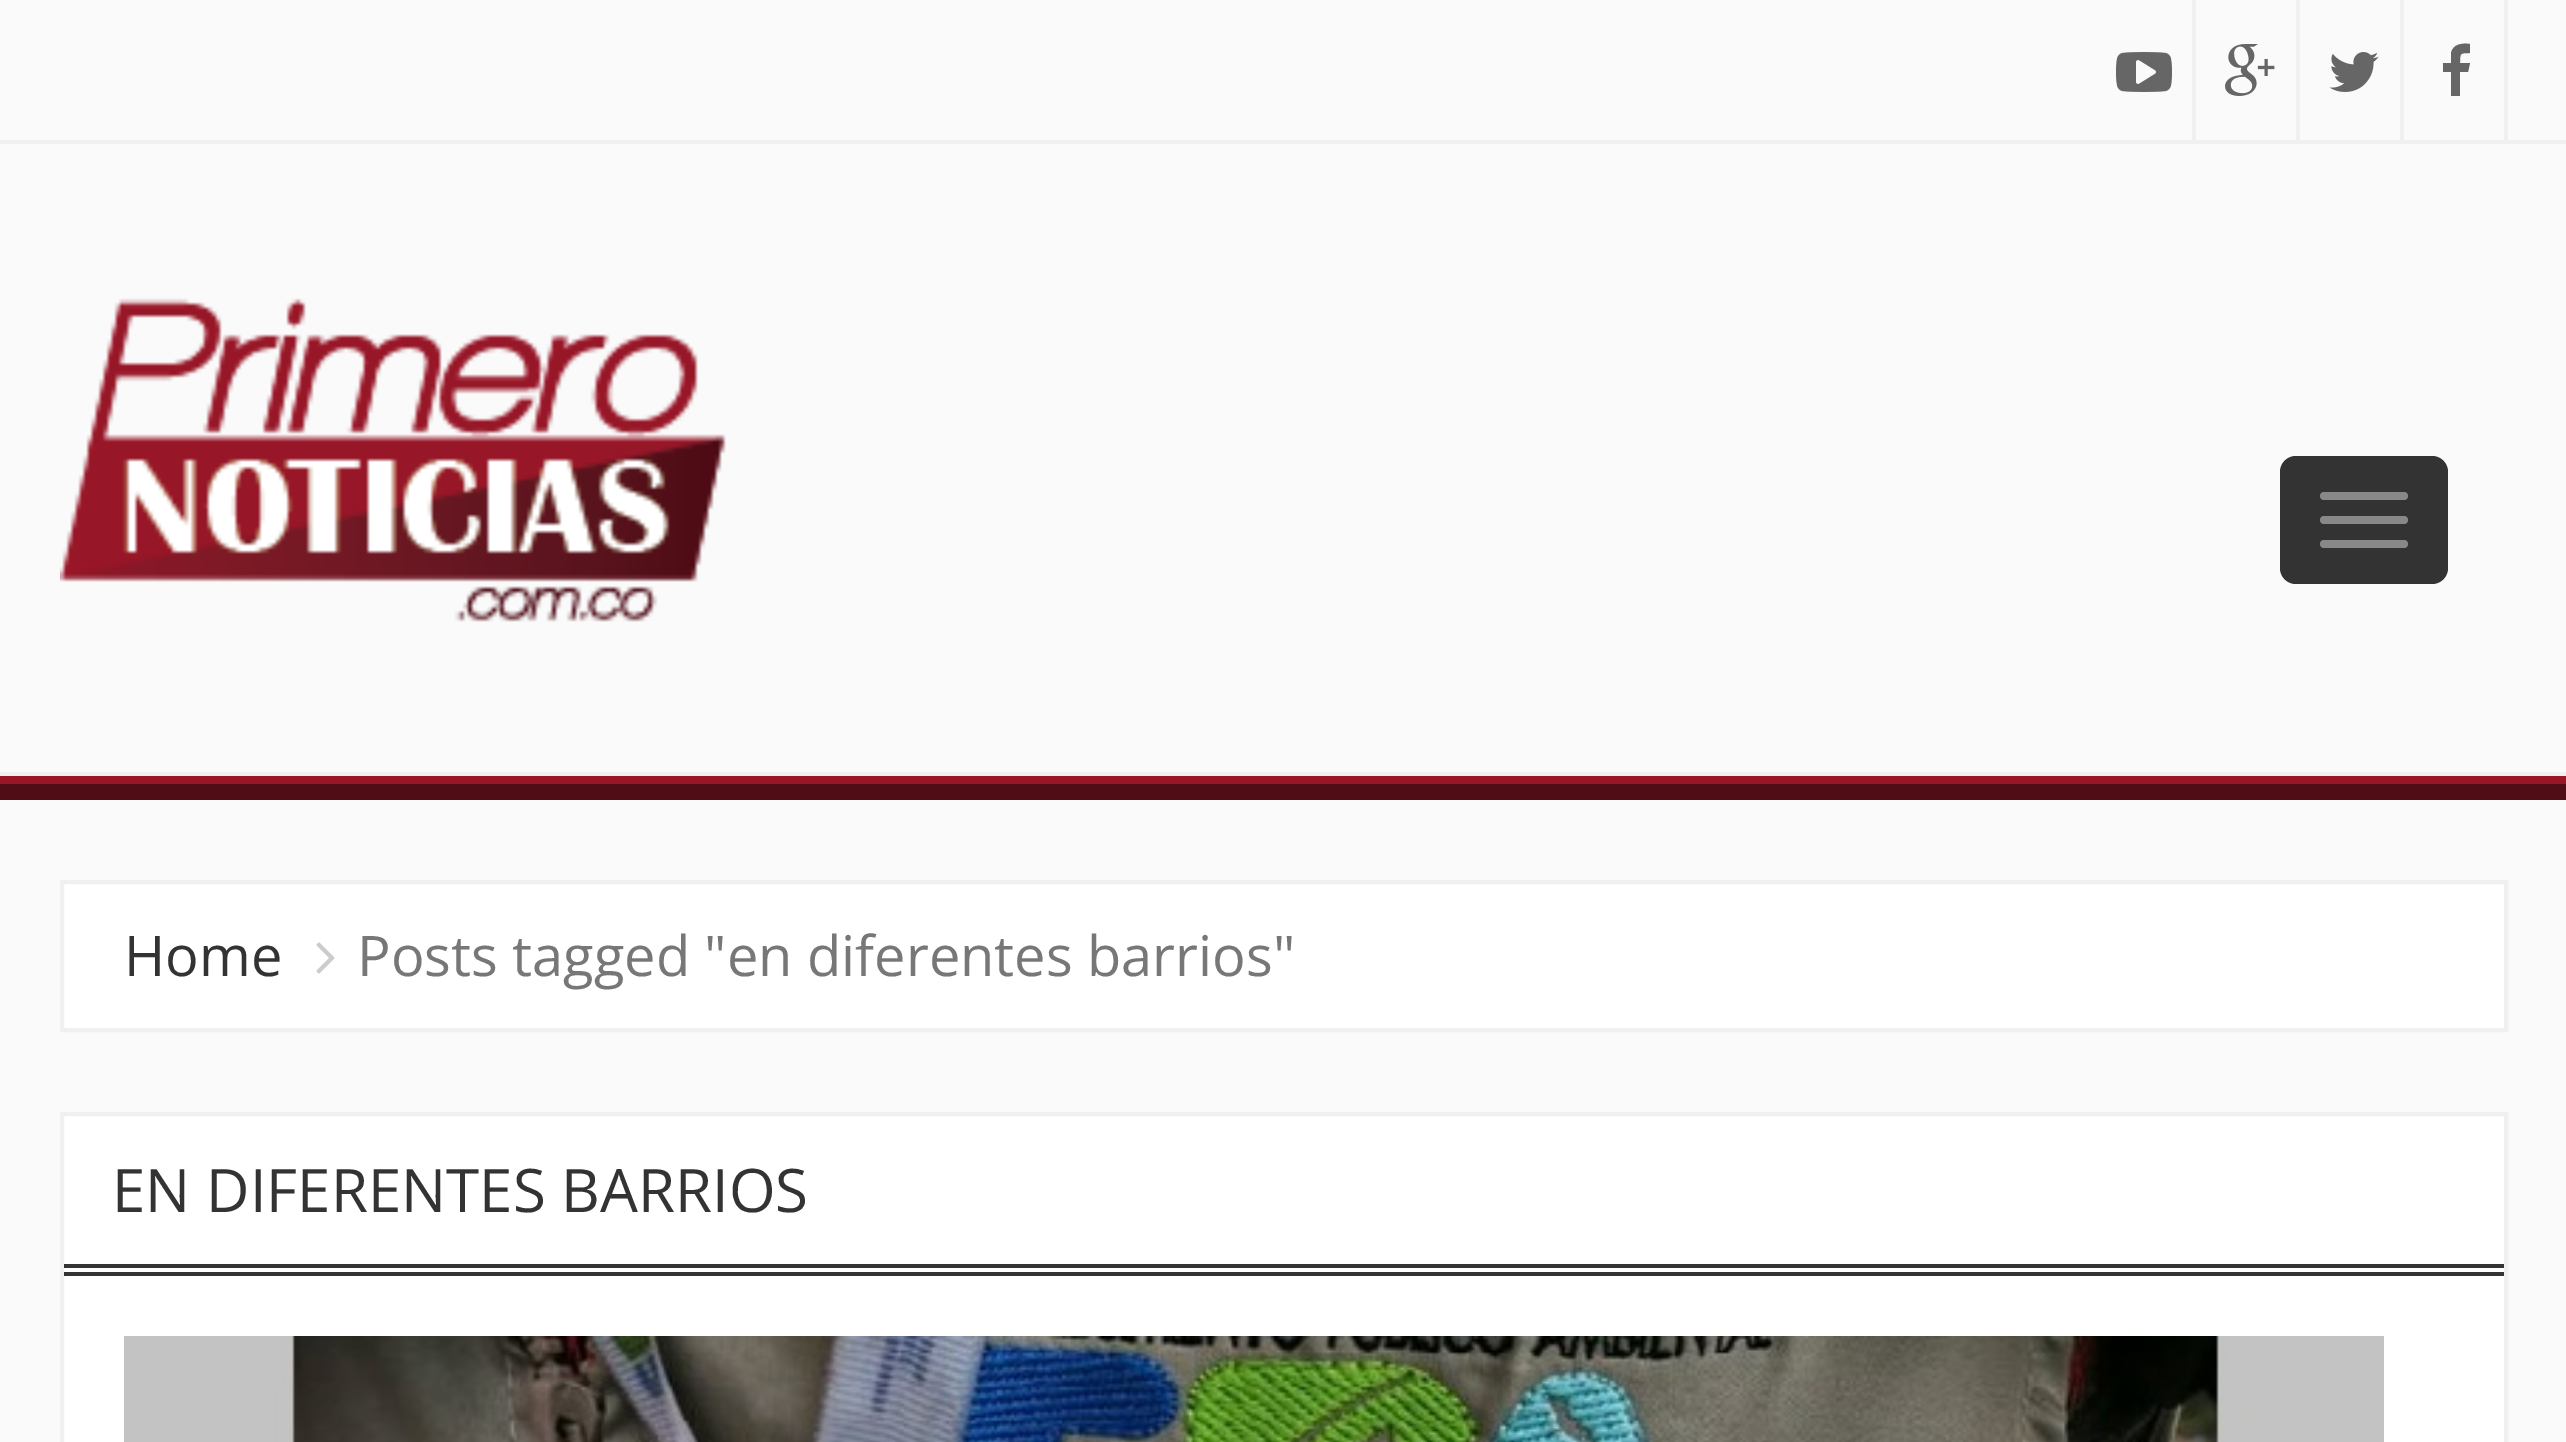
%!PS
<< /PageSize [2566 1442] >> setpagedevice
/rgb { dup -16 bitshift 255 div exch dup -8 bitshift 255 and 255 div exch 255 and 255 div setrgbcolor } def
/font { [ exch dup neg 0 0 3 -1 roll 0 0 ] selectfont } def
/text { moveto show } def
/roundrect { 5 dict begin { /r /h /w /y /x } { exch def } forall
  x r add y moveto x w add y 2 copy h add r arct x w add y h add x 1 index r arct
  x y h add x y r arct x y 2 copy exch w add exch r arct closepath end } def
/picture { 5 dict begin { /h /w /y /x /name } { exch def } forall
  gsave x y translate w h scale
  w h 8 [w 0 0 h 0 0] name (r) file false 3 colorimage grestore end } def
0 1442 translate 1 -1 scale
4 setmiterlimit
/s1 { /OpenSans-Regular 56 font 16#333333 rgb } def
/s2 { /OpenSans-Regular 56 font 16#777777 rgb } def
/s3 { /OpenSans-Regular 60 font 16#333333 rgb } def
16#FAFAFA rgb
0 0 2566 1442 rectfill
16#F0F0F0 rgb
0 140 2566 4 rectfill
2192 0 4 144 rectfill
(pic1.raw) 2116 52 56 40 picture
2296 0 4 144 rectfill
(pic2.raw) 2225 44 50 52 picture
2400 0 4 144 rectfill
(pic3.raw) 2329 52 50 40 picture
2504 0 4 144 rectfill
16#666666 rgb
2470 44 moveto 2470 53 lineto 2460 53 2460 53 2460 63 curveto 2470 63 lineto 2468 72 lineto 2460 72 lineto 2460 96 lineto 2451 96 lineto 2451 72 lineto 2443 72 lineto 2443 63 lineto 2451 63 lineto 2451 53 lineto 2453 44 2462 43 2470 44 curveto closepath fill
(pic4.raw) 60 298 666 324 picture
16#F0F0F0 rgb
0 772 2566 4 rectfill
16#510D16 rgb
0 784 2566 16 rectfill
16#981628 rgb
0 776 2566 8 rectfill
16#333333 rgb
2280 456 168 128 16 roundrect fill
16#888888 rgb
2320 492 88 8 4 roundrect fill
2320 516 88 8 4 roundrect fill
2320 540 88 8 4 roundrect fill
16#FFFFFF rgb
62 882 moveto 2506 882 lineto 2506 1030 lineto 62 1030 lineto closepath gsave fill grestore
16#F0F0F0 rgb
4 setlinewidth
stroke
s1
(Home) 124 976 text
(pic5.raw) 316 942 19 32 picture
s2
(Posts tagged "en diferentes barrios") 357 976 text
16#FFFFFF rgb
62 1114 moveto 2506 1114 lineto 2506 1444 lineto 62 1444 lineto closepath gsave fill grestore
16#F0F0F0 rgb
stroke
16#333333 rgb
64 1264 2440 4 rectfill
64 1272 2440 4 rectfill
s3
(EN DIFERENTES BARRIOS) 112 1212 text
(pic6.raw) 124 1336 2260 106 picture
showpage
